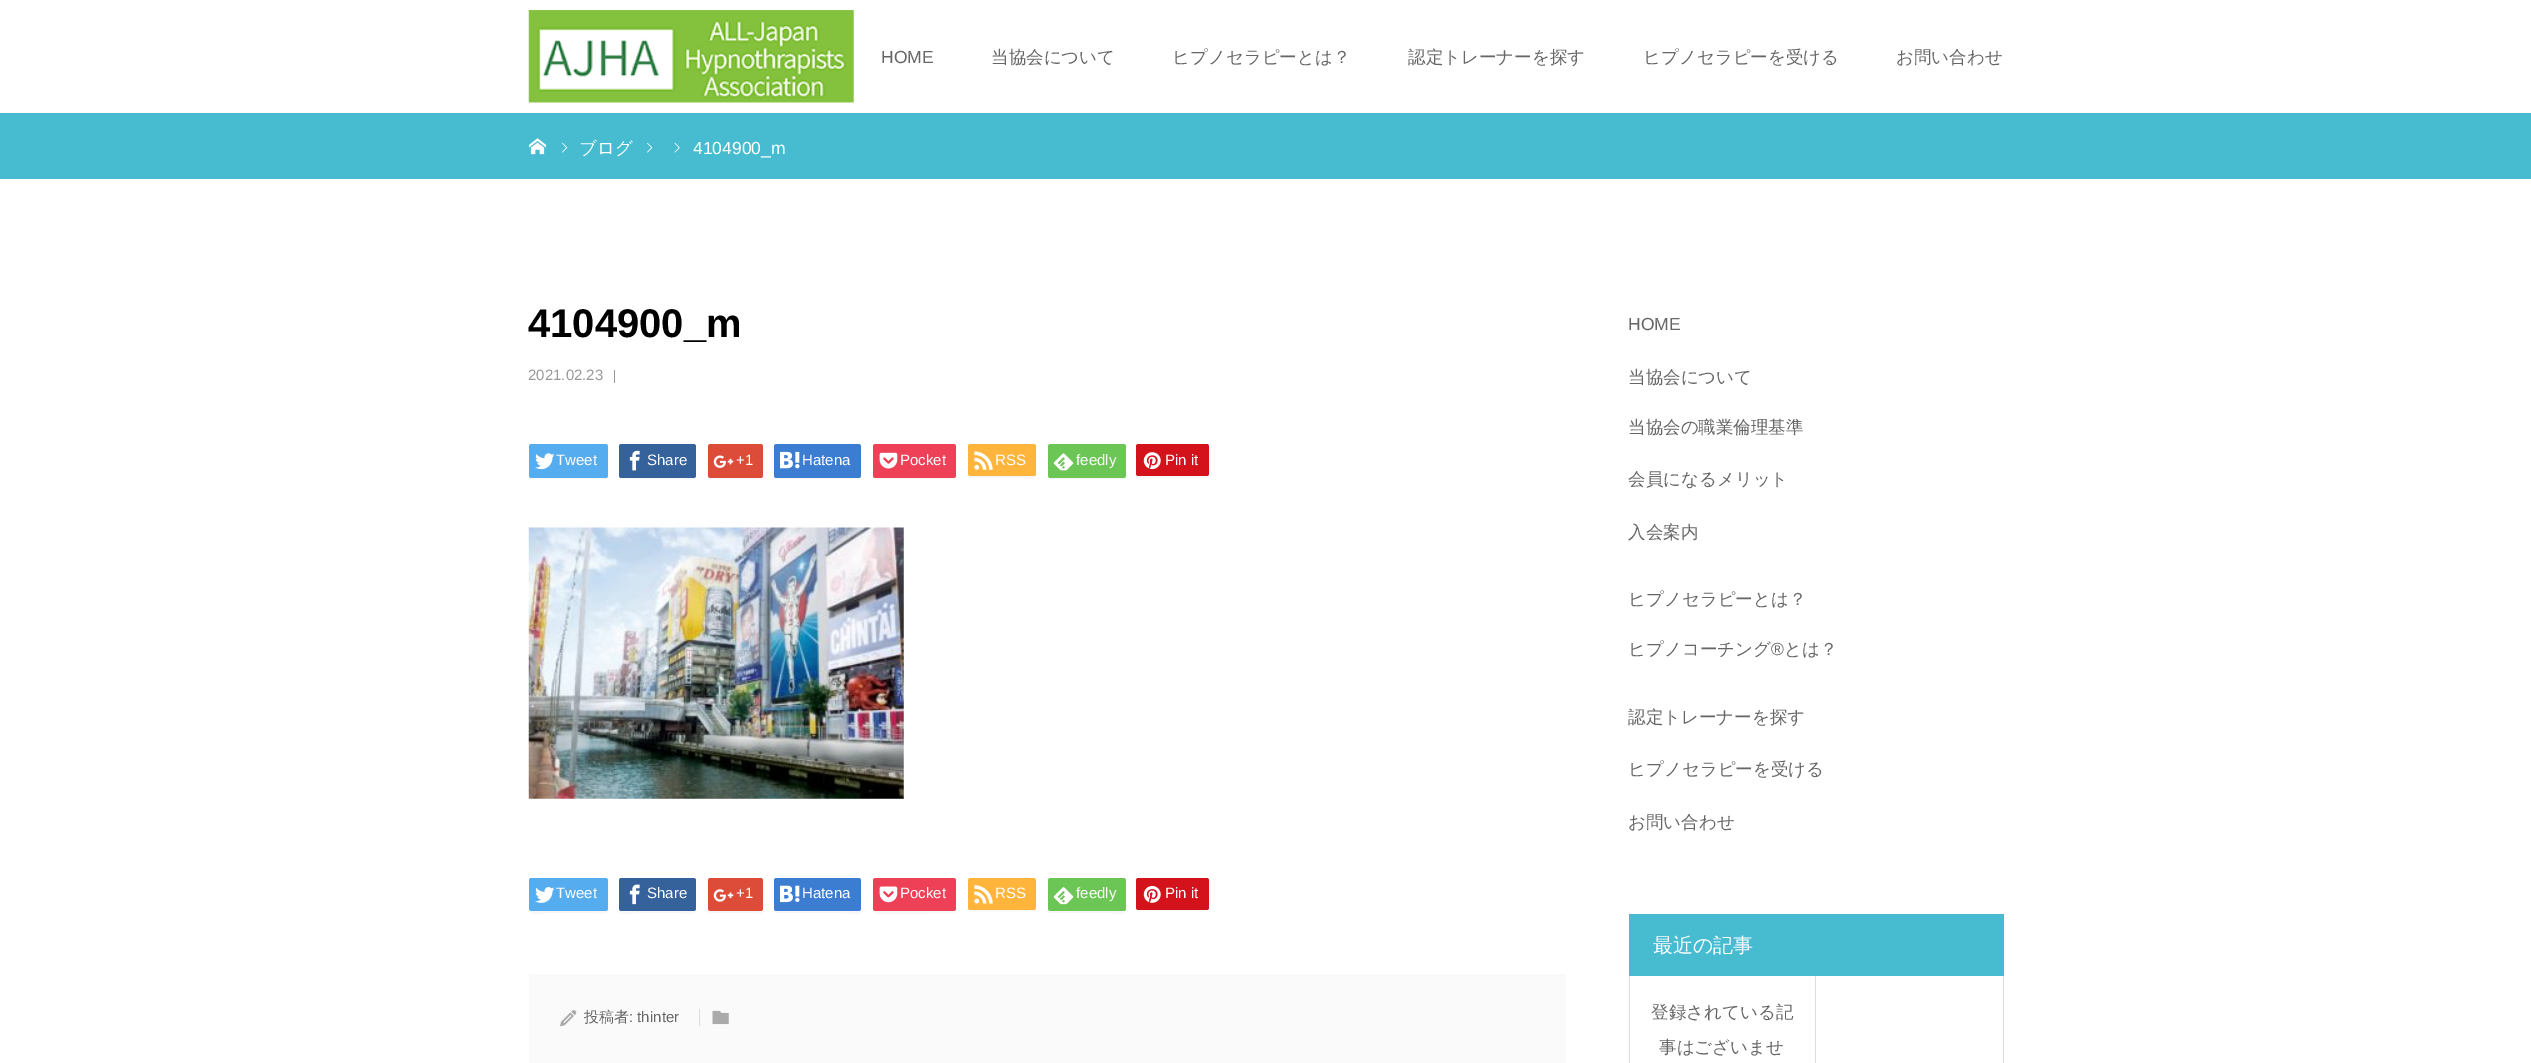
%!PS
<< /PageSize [2531 1063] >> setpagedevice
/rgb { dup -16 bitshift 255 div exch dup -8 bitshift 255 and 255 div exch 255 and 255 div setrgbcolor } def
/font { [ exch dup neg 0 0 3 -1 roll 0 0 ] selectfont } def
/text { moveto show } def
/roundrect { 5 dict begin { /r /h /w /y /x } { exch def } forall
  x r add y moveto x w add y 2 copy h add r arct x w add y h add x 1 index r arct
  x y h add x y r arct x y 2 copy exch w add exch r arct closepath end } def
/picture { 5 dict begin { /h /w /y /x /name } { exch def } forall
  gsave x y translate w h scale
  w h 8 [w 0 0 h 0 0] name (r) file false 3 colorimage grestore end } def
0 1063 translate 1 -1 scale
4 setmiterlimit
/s1 { /LiberationSans-Regular 17.5 font 16#666666 rgb } def
/s2 { /WenQuanYiZenHei-Medium 17.5 font 16#666666 rgb } def
/s3 { /WenQuanYiZenHei-Medium 17.5 font 16#FFFFFF rgb } def
/s4 { /LiberationSans-Regular 17.5 font 16#FFFFFF rgb } def
/s5 { /LiberationSans-Bold 40 font 16#000000 rgb } def
/s6 { /LiberationSans-Regular 15 font 16#999999 rgb } def
/s7 { /LiberationSans-Regular 15 font 16#FFFFFF rgb } def
/s8 { /WenQuanYiZenHei-Medium 15 font 16#666666 rgb } def
/s9 { /LiberationSans-Regular 15 font 16#666666 rgb } def
/s10 { /WenQuanYiZenHei-Medium 20 font 16#FFFFFF rgb } def
16#FFFFFF rgb
0 0 2531 1063 rectfill
(pic1.raw) 528 10 326 93 picture
s1
(HOME) 881 63 text
s2
(当協会について) 991 63 text
(ヒプノセラピーとは？) 1172 63 text
(認定トレーナーを探す) 1408 63 text
(ヒプノセラピーを受ける) 1643 63 text
(お問い合わせ) 1896 63 text
16#47BCD1 rgb
0 113 2531 66 rectfill
(pic2.raw) 529 138 17 17 picture
(pic3.raw) 562 142 6 11 picture
s3
(ブログ) 579 154 text
(pic3.raw) 647 142 6 11 picture
(pic4.raw) 674 142 6 11 picture
s4
(4104900_m) 693 154 text
s5
(4104900_m) 528 337 text
s6
(2021.02.23) 528 380 text
614 370 1 13 rectfill
16#F7F7F7 rgb
529 476 moveto 529 478 530 479 532 479 curveto 606 479 lineto 607 479 608 478 608 476 curveto 608 448 lineto 607 446 lineto 608 470 lineto 608 481 606 478 593 478 curveto 544 478 lineto 543 478 531 480 529 476 curveto closepath fill
16#55ACEE rgb
529 444 79 34 2.5 roundrect fill
(pic5.raw) 535 453 20 17 picture
s7
(Tweet) 556 465 text
16#F7F7F7 rgb
619 476 moveto 619 478 620 479 622 479 curveto 682 479 lineto 682 479 696 482 696 476 curveto 695 477 lineto 633 478 lineto 633 478 621 480 619 476 curveto closepath fill
16#35629A rgb
619 444 77 34 2.5 roundrect fill
(pic6.raw) 629 450 11 21 picture
s7
(Share) 647 465 text
16#F7F7F7 rgb
708 476 moveto 708 478 709 479 710 479 curveto 760 479 lineto 762 479 763 478 763 476 curveto 763 448 lineto 762 446 lineto 762 465 lineto 762 479 765 478 752 478 curveto 718 478 lineto 717 478 710 479 708 476 curveto closepath fill
16#DD4B39 rgb
708 444 55 34 2.5 roundrect fill
(pic7.raw) 713 455 21 13 picture
s7
(+1) 736 465 text
16#F7F7F7 rgb
774 476 moveto 774 477 775 479 776 479 curveto 859 479 lineto 860 479 861 477 861 476 curveto 861 477 860 477 859 478 curveto 776 477 lineto closepath fill
16#3C7DD1 rgb
774 444 87 34 2.5 roundrect fill
(pic8.raw) 780 451 20 18 picture
s7
(Hatena) 802 465 text
16#F7F7F7 rgb
873 476 moveto 873 478 874 479 876 479 curveto 954 479 lineto 955 479 956 478 956 476 curveto 956 477 955 478 954 478 curveto 875 478 lineto 874 478 873 477 873 476 curveto closepath fill
16#EE4056 rgb
873 444 83 34 2.5 roundrect fill
(pic9.raw) 879 452 19 17 picture
s7
(Pocket) 900 465 text
16#F7F7F7 rgb
968 475 moveto 968 477 969 478 970 478 curveto 1023 478 lineto 1026 478 1036 481 1036 475 curveto 1034 476 lineto 970 476 lineto closepath fill
16#FFB53C rgb
968 444 68 32 2.5 roundrect fill
(pic10.raw) 974 451 19 19 picture
s7
(RSS) 995 465 text
16#F7F7F7 rgb
1048 476 moveto 1049 478 lineto 1050 479 lineto 1124 479 lineto 1126 478 1126 477 1126 476 curveto 1125 477 lineto 1050 478 lineto closepath fill
16#6CC655 rgb
1048 444 78 34 2.5 roundrect fill
(pic11.raw) 1053 453 21 18 picture
s7
(feedly) 1076 465 text
16#F7F7F7 rgb
1136 446 moveto 1136 466 lineto 1136 481 1134 478 1150 478 curveto 1195 478 lineto 1211 478 1209 481 1209 466 curveto 1209 446 lineto 1209 474 lineto 1209 475 1208 476 1206 476 curveto 1139 476 lineto 1137 476 1136 475 1136 474 curveto closepath fill
16#D4121C rgb
1136 444 73 32 2.5 roundrect fill
(pic12.raw) 1143 452 18 18 picture
s7
(Pin it) 1165 465 text
(pic13.raw) 528 527 376 272 picture
16#F7F7F7 rgb
529 910 moveto 529 916 542 913 544 913 curveto 593 913 lineto 612 913 608 915 608 896 curveto 608 893 609 882 608 880 curveto 608 909 lineto 608 910 606 911 605 911 curveto 531 911 lineto 530 911 529 911 529 910 curveto closepath fill
16#55ACEE rgb
529 878 79 33 2.5 roundrect fill
(pic14.raw) 535 887 20 16 picture
s7
(Tweet) 556 898 text
16#F7F7F7 rgb
619 910 moveto 619 916 632 913 634 913 curveto 682 913 lineto 683 913 696 916 696 910 curveto 695 911 lineto 633 911 lineto 633 911 621 913 619 910 curveto closepath fill
16#35629A rgb
619 878 77 33 2.5 roundrect fill
(pic15.raw) 629 884 11 21 picture
s7
(Share) 647 898 text
16#F7F7F7 rgb
708 910 moveto 708 912 709 913 710 913 curveto 752 913 lineto 763 913 763 915 763 906 curveto 763 896 lineto 763 893 764 882 762 880 curveto 762 909 lineto 762 910 761 911 760 911 curveto 710 911 lineto 709 911 708 911 708 910 curveto closepath fill
16#DD4B39 rgb
708 878 55 33 2.5 roundrect fill
(pic16.raw) 713 889 21 13 picture
s7
(+1) 736 898 text
16#F7F7F7 rgb
774 910 moveto 774 911 775 913 776 913 curveto 845 913 lineto 846 913 861 917 861 910 curveto 861 911 860 911 859 911 curveto 776 911 lineto closepath fill
16#3C7DD1 rgb
774 878 87 33 2.5 roundrect fill
(pic17.raw) 780 885 20 18 picture
s7
(Hatena) 802 898 text
16#F7F7F7 rgb
873 910 moveto 874 913 lineto 876 914 946 913 954 913 curveto 955 913 956 911 956 910 curveto 956 911 955 911 954 911 curveto 875 911 lineto 874 911 873 911 873 910 curveto closepath fill
16#EE4056 rgb
873 878 83 33 2.5 roundrect fill
(pic18.raw) 879 886 19 17 picture
s7
(Pocket) 900 898 text
16#F7F7F7 rgb
968 909 moveto 970 911 lineto 972 912 1035 911 1035 911 curveto 1036 909 lineto 1034 910 lineto 970 910 lineto closepath fill
16#FFB53C rgb
968 878 68 32 2.5 roundrect fill
(pic19.raw) 974 885 19 19 picture
s7
(RSS) 995 898 text
16#F7F7F7 rgb
1048 910 moveto 1048 911 1048 912 1050 913 curveto 1111 913 lineto 1113 913 1126 916 1126 910 curveto 1125 911 lineto 1050 911 lineto closepath fill
16#6CC655 rgb
1048 878 78 33 2.5 roundrect fill
(pic20.raw) 1053 887 21 18 picture
s7
(feedly) 1076 898 text
16#F7F7F7 rgb
1136 880 moveto 1136 900 lineto 1136 914 1134 911 1150 911 curveto 1195 911 lineto 1211 911 1209 914 1209 900 curveto 1209 880 lineto 1209 908 lineto 1209 909 1208 910 1206 910 curveto 1139 910 lineto 1137 910 1136 909 1136 908 curveto closepath fill
16#D4121C rgb
1136 878 73 32 2.5 roundrect fill
(pic21.raw) 1143 885 18 18 picture
s7
(Pin it) 1165 898 text
16#FAFAFA rgb
529 974 1037 89 rectfill
16#DDDDDD rgb
699 1009 1 17 rectfill
(pic22.raw) 560 1010 17 17 picture
s8
(投稿者) 584 1022 text
s9
(: thinter) 629 1022 text
(pic23.raw) 712 1010 17 15 picture
s1
(HOME) 1628 330 text
s2
(当協会について) 1628 383 text
(当協会の職業倫理基準) 1628 433 text
(会員になるメリット) 1628 485 text
(入会案内) 1628 538 text
(ヒプノセラピーとは？) 1628 605 text
(ヒプノコーチング) 1628 655 text
s1
(®) 1771 655 text
s2
(とは？) 1784 655 text
(認定トレーナーを探す) 1628 723 text
(ヒプノセラピーを受ける) 1628 775 text
(お問い合わせ) 1628 828 text
16#47BCD1 rgb
1629 914 375 62 rectfill
s10
(最近の記事) 1653 952 text
16#DDDDDD rgb
2003 976 1 87 rectfill
1629 976 1 87 rectfill
1815 976 1 87 rectfill
s2
(登録されている記) 1651 1018 text
(事はございませ) 1659 1053 text
showpage
